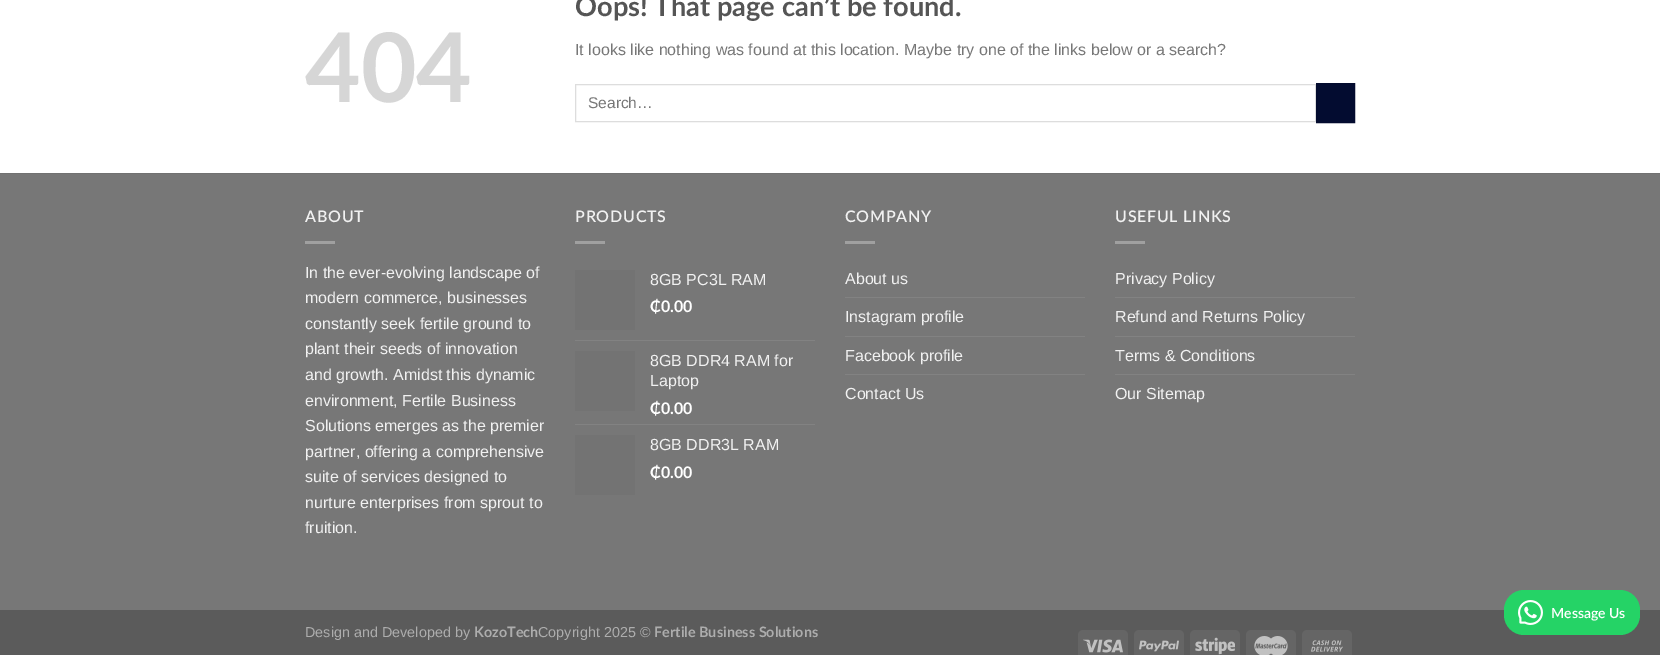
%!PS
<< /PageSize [1660 655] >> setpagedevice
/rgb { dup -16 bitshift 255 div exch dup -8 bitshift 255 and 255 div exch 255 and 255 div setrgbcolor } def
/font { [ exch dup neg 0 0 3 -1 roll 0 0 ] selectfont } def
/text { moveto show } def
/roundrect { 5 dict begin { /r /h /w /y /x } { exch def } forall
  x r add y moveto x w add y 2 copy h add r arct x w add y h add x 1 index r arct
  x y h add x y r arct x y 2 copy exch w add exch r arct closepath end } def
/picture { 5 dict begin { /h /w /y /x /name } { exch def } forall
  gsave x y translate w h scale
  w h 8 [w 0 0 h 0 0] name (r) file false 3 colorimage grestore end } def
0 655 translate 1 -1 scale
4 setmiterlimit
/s1 { /Lato-Bold 96 font 16#D6D6D6 rgb } def
/s2 { /Lato-Bold 27.25 font 16#555555 rgb } def
/s3 { /LiberationSans-Regular 16 font 16#777777 rgb } def
/s4 { /LiberationSans-Regular 15.5 font 16#777777 rgb } def
/s5 { /LiberationSans-Regular 16 font 16#F1F1F1 rgb } def
/s6 { /Lato-Bold 16 font 16#FFFFFF rgb } def
/s7 { /Lato-SemiBold 14 font 16#FFFFFF rgb } def
/s8 { /LiberationSans-Regular 14.4 font 16#ADADAD rgb } def
/s9 { /Lato-Bold 14.4 font 16#ADADAD rgb } def
16#FFFFFF rgb
0 0 1660 655 rectfill
s1
(404) 305 102 text
s2
(Oops! That page can’t be found.) 575 16 text
s3
(It looks like nothing was found at this location. Maybe try one of the links below or a search?) 575 55 text
16#DDDDDD rgb
575.5 84.5 740 37 rectstroke
s4
(Search…) 588 108 text
16#030C30 rgb
1316.5 83.5 moveto 1354.5 83.5 lineto 1354.5 122.5 lineto 1316.5 122.5 lineto closepath gsave fill grestore
16#030B2E rgb
stroke
16#777777 rgb
0 174 1660 436 rectfill
16#717171 rgb
0 173 1660 1 rectfill
/Lato-SemiBold 16 font
16#F1F1F1 rgb
305 222 moveto 0.75 0 (ABOUT) ashow
16#A0A0A0 rgb
305 241 30 3 rectfill
s5
(In the ever-evolving landscape of) 305 278 text
(modern commerce, businesses) 305 303 text
(constantly seek fertile ground to) 305 329 text
(plant their seeds of innovation) 305 354 text
(and growth. Amidst this dynamic) 305 380 text
(environment, Fertile Business) 305 406 text
(Solutions emerges as the premier) 305 431 text
(partner, offering a comprehensive) 305 457 text
(suite of services designed to) 305 482 text
(nurture enterprises from sprout to) 305 508 text
(fruition.) 305 533 text
/Lato-SemiBold 16 font
575 222 moveto 0.75 0 (PRODUCTS) ashow
16#A0A0A0 rgb
575 241 30 3 rectfill
16#737373 rgb
575 270 60 60 rectfill
s5
(8GB PC3L RAM) 650 285 text
s6
(₵0.00) 650 312 text
16#828282 rgb
575 340 240 1 rectfill
16#737373 rgb
575 351 60 60 rectfill
s5
(8GB DDR4 RAM for) 650 366 text
(Laptop) 650 386 text
s6
(₵0.00) 650 414 text
16#828282 rgb
575 424 240 1 rectfill
16#737373 rgb
575 435 60 60 rectfill
s5
(8GB DDR3L RAM) 650 450 text
s6
(₵0.00) 650 478 text
/Lato-SemiBold 16 font
16#F1F1F1 rgb
845 222 moveto 0.75 0 (COMPANY) ashow
16#A0A0A0 rgb
845 241 30 3 rectfill
s5
(About us) 845 284 text
16#828282 rgb
845 297 240 1 rectfill
s5
(Instagram profile) 845 322 text
16#828282 rgb
845 336 240 1 rectfill
s5
(Facebook profile) 845 361 text
16#828282 rgb
845 374 240 1 rectfill
s5
(Contact Us) 845 399 text
/Lato-SemiBold 16 font
1115 222 moveto 0.75 0 (USEFUL LINKS) ashow
16#A0A0A0 rgb
1115 241 30 3 rectfill
s5
(Privacy Policy) 1115 284 text
16#828282 rgb
1115 297 240 1 rectfill
s5
(Refund and Returns Policy) 1115 322 text
16#828282 rgb
1115 336 240 1 rectfill
s5
(Terms & Conditions) 1115 361 text
16#828282 rgb
1115 374 240 1 rectfill
s5
(Our Sitemap) 1115 399 text
16#5B5B5B rgb
0 610 1660 45 rectfill
16#25D366 rgb
1504 590 136 45 20 roundrect fill
(pic1.raw) 1518 600 25 25 picture
s7
(Message Us) 1551 618 text
s8
(Design and Developed by) 305 637 text
s9
(KozoTech) 474 637 text
s8
(Copyright 2025 ©) 538 637 text
s9
(Fertile Business Solutions) 654 637 text
16#656565 rgb
1078 630 50 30 5 roundrect fill
(pic2.raw) 1083 639 40 14 picture
1134 630 50 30 5 roundrect fill
(pic3.raw) 1139 640 40 12 picture
1190 630 50 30 5 roundrect fill
(pic4.raw) 1195 637 40 18 picture
1246 630 50 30 5 roundrect fill
(pic5.raw) 1254 636 34 19 picture
1302 630 50 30 5 roundrect fill
(pic6.raw) 1311 640 32 12 picture
showpage
